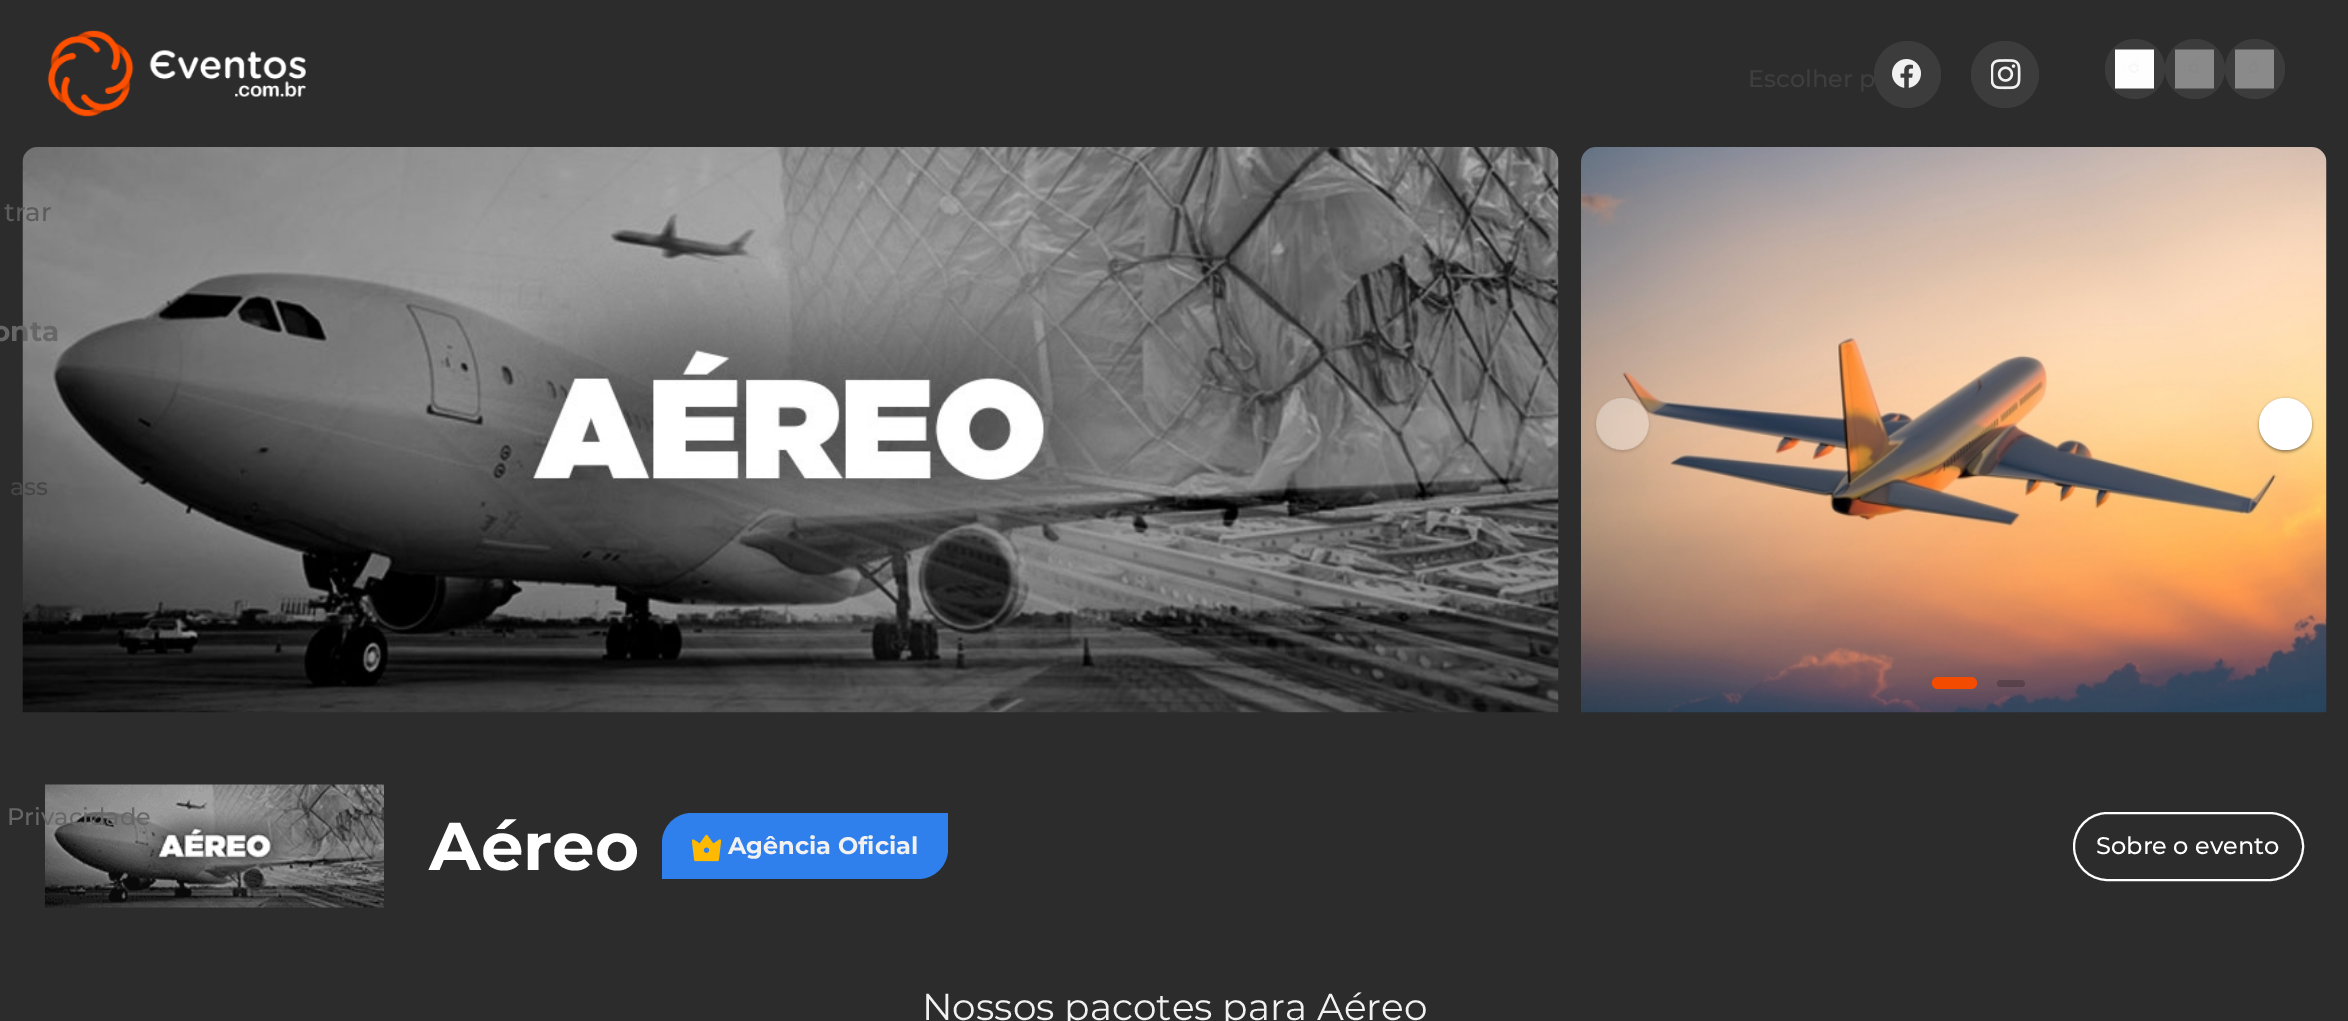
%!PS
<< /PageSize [2348 1021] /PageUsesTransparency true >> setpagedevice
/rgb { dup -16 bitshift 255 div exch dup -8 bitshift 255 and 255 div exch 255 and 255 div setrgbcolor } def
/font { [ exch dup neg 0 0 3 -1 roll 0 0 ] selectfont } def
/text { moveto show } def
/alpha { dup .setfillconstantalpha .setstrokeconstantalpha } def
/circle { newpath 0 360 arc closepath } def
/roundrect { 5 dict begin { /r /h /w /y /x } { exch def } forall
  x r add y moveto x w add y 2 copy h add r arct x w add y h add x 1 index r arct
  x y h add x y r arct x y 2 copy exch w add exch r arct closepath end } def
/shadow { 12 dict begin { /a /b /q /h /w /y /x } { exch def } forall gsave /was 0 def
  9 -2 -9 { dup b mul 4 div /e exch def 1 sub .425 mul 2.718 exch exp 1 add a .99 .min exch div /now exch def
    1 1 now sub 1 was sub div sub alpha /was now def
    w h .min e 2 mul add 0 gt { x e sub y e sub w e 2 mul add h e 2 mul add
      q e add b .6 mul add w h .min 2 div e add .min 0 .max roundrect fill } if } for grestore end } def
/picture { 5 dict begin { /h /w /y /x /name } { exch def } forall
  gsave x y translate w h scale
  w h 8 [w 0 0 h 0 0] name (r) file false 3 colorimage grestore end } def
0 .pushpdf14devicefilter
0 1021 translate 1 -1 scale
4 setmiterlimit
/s1 { /Montserrat-Medium 26 font 16#5B5B5B rgb } def
/s2 { /Montserrat-Bold 28 font 16#666666 rgb } def
/s3 { /Montserrat-Medium 24 font 16#464646 rgb } def
/s4 { /Montserrat-Medium 24 font 16#666666 rgb } def
/s5 { /Montserrat-Medium 24 font 16#3E3E3E rgb } def
/s6 { /Montserrat-Bold 67.5 font 16#FFFFFF rgb } def
/s7 { /Montserrat-Bold 24 font 16#F1F1F1 rgb } def
/s8 { /Montserrat-Medium 24 font 16#FFFFFF rgb } def
/s9 { /Montserrat-Regular 37.5 font 16#F1F1F1 rgb } def
16#2C2C2C rgb
0 0 2348 1021 rectfill
(pic1.raw) 47 30 259 87 picture
16#3C3C3C rgb
1907.5 74.5 33.5 circle fill
(pic2.raw) 1892 59 29 29 picture
1971 41 68 67 33.5 roundrect fill
(pic3.raw) 1991 59 30 31 picture
2135 69 30 circle fill
(pic4.raw) 2115 49 39 40 picture
2195 69 30 circle fill
(pic5.raw) 2175 49 39 40 picture
2255 69 30 circle fill
(pic5.raw) 2235 49 39 40 picture
(pic6.raw) 22 147 1537 566 picture
s1
(trar) 4 221 text
s2
(onta) -8 341 text
s3
(ass) 10 495 text
(pic8.raw) 45 784 339 124 picture
s4
(Privacidade) 7 825 text
s5
(Escolher p) 1748 87 text
(pic7.raw) 1581 147 746 566 picture
16#F34C00 rgb
1932 677 45 12 6 roundrect fill
0.2 alpha
16#000000 rgb
1997 680 28 7 3.5 roundrect fill
gsave
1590 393 moveto 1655 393 lineto 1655 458 lineto 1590 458 lineto closepath 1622 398 moveto 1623 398 lineto 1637.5 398 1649 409.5 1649 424 curveto 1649 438.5 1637.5 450 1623 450 curveto 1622 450 lineto 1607.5 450 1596 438.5 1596 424 curveto 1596 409.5 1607.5 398 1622 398 curveto closepath eoclip newpath
1 alpha
1596 399 53 53 26.5 1.5 0.14 shadow
grestore
0.35 alpha
16#FFFFFF rgb
1596 398 53 52 26 roundrect fill
1 alpha
16#000000 rgb
2259 399 53 53 26.5 1.5 0.4 shadow
16#FFFFFF rgb
2259 398 53 52 26 roundrect fill
s6
(Aéreo) 429 870 text
16#2F80ED rgb
692 813 moveto 948 813 lineto 948 849 lineto 948 865.5 934.5 879 918 879 curveto 662 879 lineto 662 843 lineto 662 826.5 675.5 813 692 813 curveto closepath fill
(pic9.raw) 692 834 30 28 picture
s7
(Agência Oficial) 728 854 text
16#FFFFFF rgb
2 setlinewidth
2074 813 229 67 33.5 roundrect stroke
s8
(Sobre o evento) 2096 854 text
s9
(Nossos pacotes para Aéreo) 922 1020 text
.poppdf14devicefilter showpage
